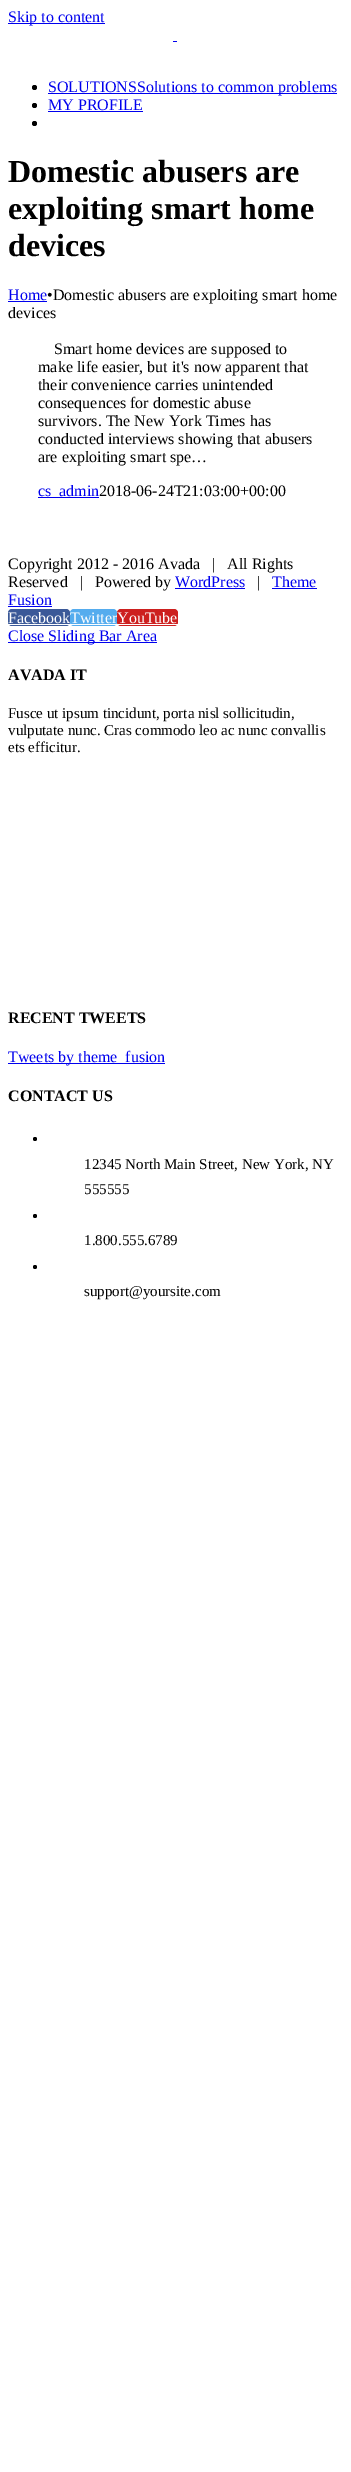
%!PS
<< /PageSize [351 2472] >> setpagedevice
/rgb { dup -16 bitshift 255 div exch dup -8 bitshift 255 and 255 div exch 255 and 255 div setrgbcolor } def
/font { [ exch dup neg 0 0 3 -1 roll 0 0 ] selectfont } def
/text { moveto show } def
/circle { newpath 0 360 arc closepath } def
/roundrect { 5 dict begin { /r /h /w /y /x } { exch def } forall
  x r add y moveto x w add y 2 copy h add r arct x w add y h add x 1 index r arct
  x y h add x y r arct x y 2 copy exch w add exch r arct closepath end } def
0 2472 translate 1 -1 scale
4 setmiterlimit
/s1 { /LiberationSerif-Regular 16 font 16#0000EE rgb } def
/s2 { /LiberationSerif-Bold 32 font 16#000000 rgb } def
/s3 { /LiberationSerif-Regular 16 font 16#000000 rgb } def
/s4 { /LiberationSerif-Regular 16 font 16#FFFFFF rgb } def
/s5 { /LiberationSerif-Bold 16 font 16#000000 rgb } def
/s6 { /LiberationSerif-Regular 15 font 16#000000 rgb } def
16#FFFFFF rgb
0 0 351 2472 rectfill
16#0000EE rgb
8 23 97 1 rectfill
s1
(Skip to content) 8 22 text
173 41 4 1 rectfill
16#000000 rgb
34.5 87.5 2.5 circle fill
16#0000EE rgb
48 93 289 1 rectfill
(SOLUTIONSSolutions to common problems) 48 92 text
16#000000 rgb
34.5 105.5 2.5 circle fill
s1
(MY PROFILE) 48 110 text
48 111 95 1 rectfill
16#000000 rgb
34.5 123.5 2.5 circle fill
s2
(Domestic abusers are) 8 182 text
(exploiting smart home) 8 219 text
(devices) 8 256 text
s1
(Home) 8 300 text
8 301 39 1 rectfill
s3
(•Domestic abusers are exploiting smart home) 47 300 text
(devices) 8 318 text
(Smart home devices are supposed to) 54 354 text
(make life easier, but it's now apparent that) 38 372 text
(their convenience carries unintended) 38 390 text
(consequences for domestic abuse) 38 408 text
(survivors. The New York Times has) 38 426 text
(conducted interviews showing that abusers) 38 444 text
(are exploiting smart spe…) 38 462 text
16#0000EE rgb
38 497 61 1 rectfill
(cs_admin) 38 496 text
s3
(2018-06-24T21:03:00+00:00) 99 496 text
(Copyright 2012 - 2016 Avada   |   All Rights) 8 569 text
(Reserved   |   Powered by) 8 587 text
s1
(WordPress) 175 587 text
175 588 70 1 rectfill
s3
(|) 257 587 text
s1
(Theme) 272 587 text
272 588 45 1 rectfill
(Fusion) 8 605 text
8 606 44 1 rectfill
16#3B5998 rgb
8 609 62 17 4 roundrect fill
s4
(Facebook) 8 623 text
8 624 62 1 rectfill
16#55ACEE rgb
70 609 47 17 4 roundrect fill
s4
(Twitter) 70 623 text
70 624 47 1 rectfill
16#CD201F rgb
117 609 61 17 4 roundrect fill
s4
(YouTube) 117 623 text
117 624 61 1 rectfill
16#0000EE rgb
8 642 149 1 rectfill
(Close Sliding Bar Area) 8 641 text
s5
(AVADA IT) 8 680 text
s6
(Fusce ut ipsum tincidunt, porta nisl sollicitudin,) 8 718 text
(vulputate nunc. Cras commodo leo ac nunc convallis) 8 735 text
(ets efficitur.) 8 752 text
s5
(RECENT TWEETS) 8 1023 text
16#0000EE rgb
8 1063 157 1 rectfill
s1
(Tweets by theme_fusion) 8 1062 text
s5
(CONTACT US) 8 1101 text
35 1139 2 circle fill
s6
(12345 North Main Street, New York, NY) 84 1169 text
(555555) 84 1194 text
35 1216 2 circle fill
(1.800.555.6789) 84 1245 text
35 1267 2 circle fill
(support@yoursite.com) 84 1296 text
showpage
